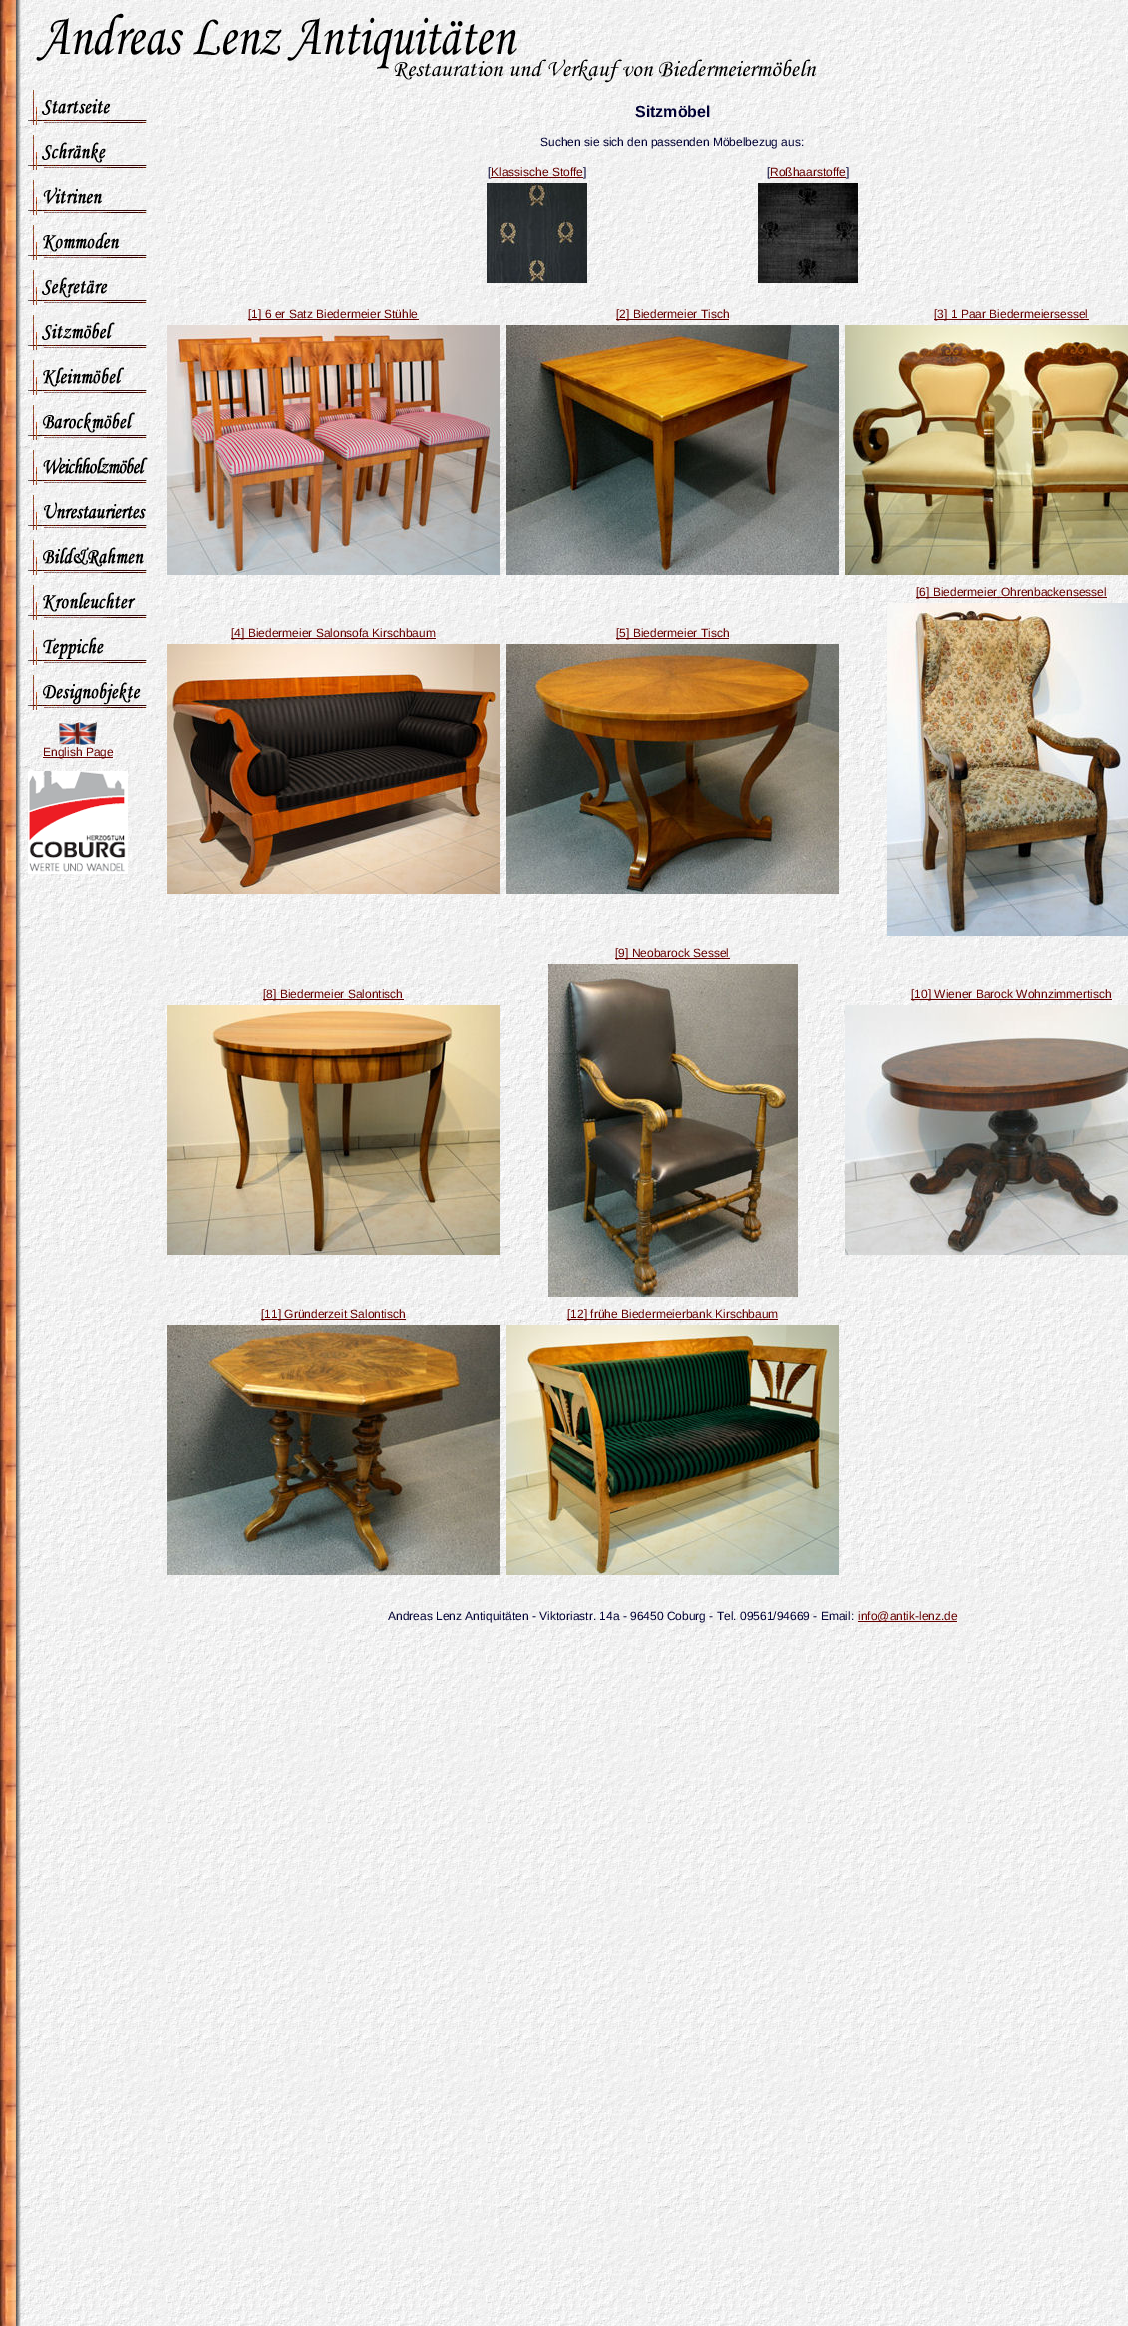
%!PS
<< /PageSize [1128 2326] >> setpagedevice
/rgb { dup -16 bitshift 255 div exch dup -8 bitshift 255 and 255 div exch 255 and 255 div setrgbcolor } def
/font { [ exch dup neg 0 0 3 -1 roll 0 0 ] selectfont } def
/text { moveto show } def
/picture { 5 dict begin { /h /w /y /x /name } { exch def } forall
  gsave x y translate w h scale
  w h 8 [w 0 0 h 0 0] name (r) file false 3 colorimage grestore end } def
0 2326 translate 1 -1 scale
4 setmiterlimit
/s1 { /LiberationSans-Regular 12 font 16#660000 rgb } def
/s2 { /LiberationSans-Bold 16 font 16#000033 rgb } def
/s3 { /LiberationSans-Regular 12 font 16#000033 rgb } def
16#FFFFFF rgb
0 0 1128 2326 rectfill
(pic1.raw) 0 0 1128 2326 picture
(pic2.raw) 36 13 781 70 picture
(pic3.raw) 28 90 119 35 picture
(pic4.raw) 28 135 119 35 picture
(pic5.raw) 28 180 119 35 picture
(pic6.raw) 28 225 119 35 picture
(pic7.raw) 28 270 119 35 picture
(pic8.raw) 28 315 119 35 picture
(pic9.raw) 28 360 119 35 picture
(pic10.raw) 28 405 119 35 picture
(pic11.raw) 28 450 120 35 picture
(pic12.raw) 28 495 119 35 picture
(pic13.raw) 28 540 119 35 picture
(pic14.raw) 28 585 119 35 picture
(pic15.raw) 28 630 119 35 picture
(pic16.raw) 28 675 119 35 picture
(pic17.raw) 59 722 38 23 picture
16#660000 rgb
43 757 70 1 rectfill
s1
(English Page) 43 756 text
(pic18.raw) 28 771 100 103 picture
s2
(Sitzmöbel) 635 117 text
s3
(Suchen sie sich den passenden Möbelbezug aus:) 540 146 text
([) 488 176 text
s1
(Klassische Stoffe) 491 176 text
491 177 92 1 rectfill
s3
(]) 583 176 text
(pic19.raw) 487 183 100 100 picture
([) 767 176 text
s1
(Roßhaarstoffe) 770 176 text
770 177 76 1 rectfill
s3
(]) 846 176 text
(pic20.raw) 758 183 100 100 picture
16#660000 rgb
248 319 171 1 rectfill
([1] 6 er Satz Biedermeier Stühle) 248 318 text
(pic21.raw) 167 325 333 250 picture
616 319 113 1 rectfill
([2] Biedermeier Tisch) 616 318 text
(pic22.raw) 506 325 333 250 picture
934 319 155 1 rectfill
([3] 1 Paar Biedermeiersessel) 934 318 text
(pic23.raw) 845 325 283 250 picture
916 597 191 1 rectfill
([6] Biedermeier Ohrenbackensessel) 916 596 text
(pic24.raw) 887 603 241 333 picture
231 638 205 1 rectfill
([4] Biedermeier Salonsofa Kirschbaum) 231 637 text
(pic25.raw) 167 644 333 250 picture
616 638 113 1 rectfill
([5] Biedermeier Tisch) 616 637 text
(pic26.raw) 506 644 333 250 picture
615 958 115 1 rectfill
([9] Neobarock Sessel) 615 957 text
(pic27.raw) 548 964 250 333 picture
263 999 141 1 rectfill
([8] Biedermeier Salontisch) 263 998 text
(pic28.raw) 167 1005 333 250 picture
911 999 201 1 rectfill
([10] Wiener Barock Wohnzimmertisch) 911 998 text
(pic29.raw) 845 1005 283 250 picture
261 1319 145 1 rectfill
([11] Gründerzeit Salontisch) 261 1318 text
(pic30.raw) 167 1325 333 250 picture
567 1319 211 1 rectfill
([12] frühe Biedermeierbank Kirschbaum) 567 1318 text
(pic31.raw) 506 1325 333 250 picture
s3
(Andreas Lenz Antiquitäten - Viktoriastr. 14a - 96450 Coburg - Tel. 09561/94669 - Email:) 388 1620 text
16#660000 rgb
858 1621 99 1 rectfill
(info@antik-lenz.de) 858 1620 text
showpage
